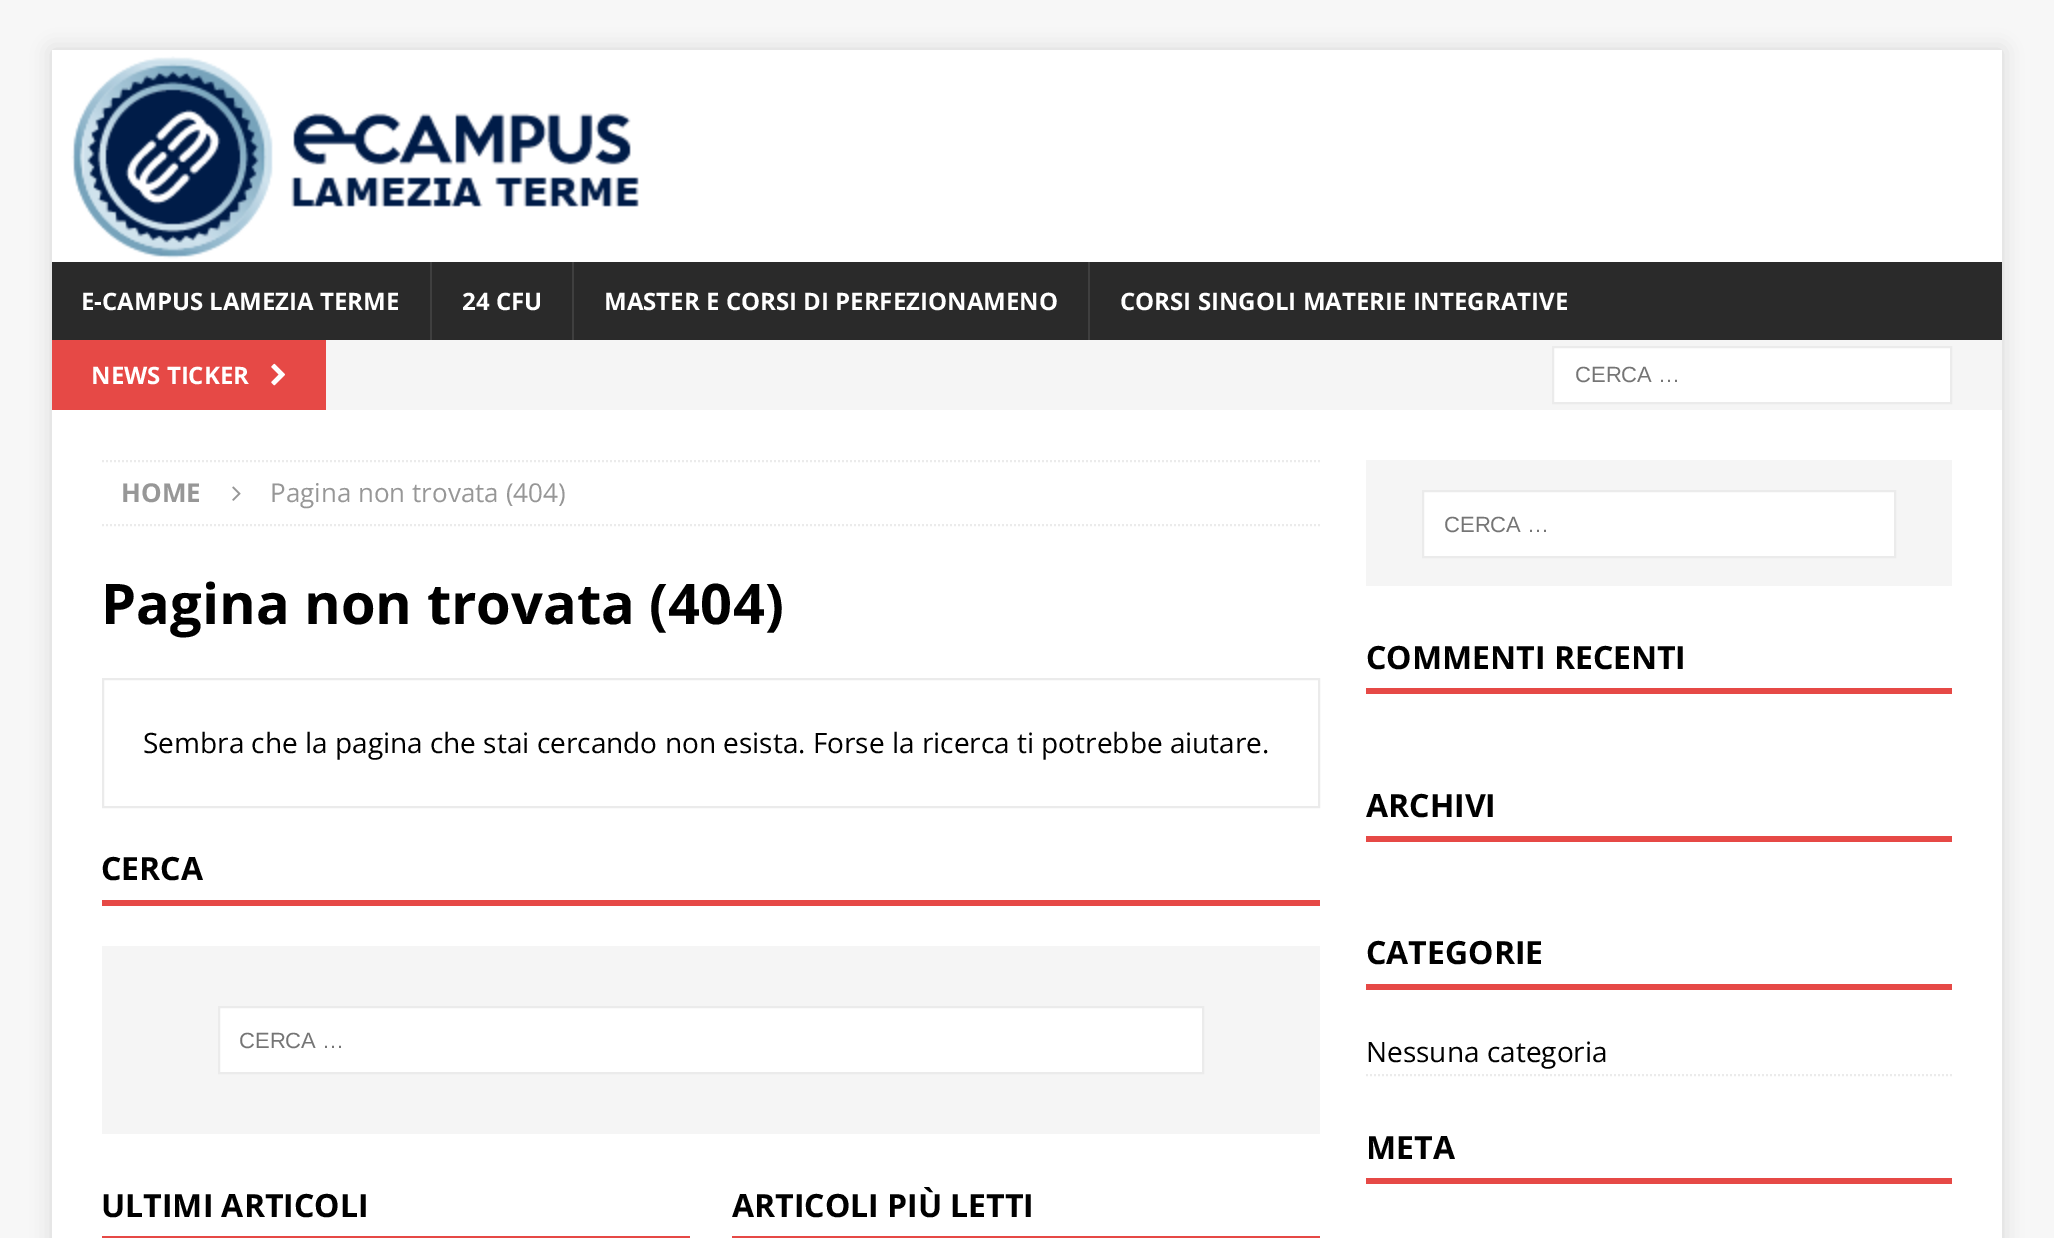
%!PS
<< /PageSize [2054 1238] /PageUsesTransparency true >> setpagedevice
/rgb { dup -16 bitshift 255 div exch dup -8 bitshift 255 and 255 div exch 255 and 255 div setrgbcolor } def
/font { [ exch dup neg 0 0 3 -1 roll 0 0 ] selectfont } def
/text { moveto show } def
/alpha { dup .setfillconstantalpha .setstrokeconstantalpha } def
/roundrect { 5 dict begin { /r /h /w /y /x } { exch def } forall
  x r add y moveto x w add y 2 copy h add r arct x w add y h add x 1 index r arct
  x y h add x y r arct x y 2 copy exch w add exch r arct closepath end } def
/shadow { 12 dict begin { /a /b /q /h /w /y /x } { exch def } forall gsave /was 0 def
  9 -2 -9 { dup b mul 4 div /e exch def 1 sub .425 mul 2.718 exch exp 1 add a .99 .min exch div /now exch def
    1 1 now sub 1 was sub div sub alpha /was now def
    w h .min e 2 mul add 0 gt { x e sub y e sub w e 2 mul add h e 2 mul add
      q e add b .6 mul add w h .min 2 div e add .min 0 .max roundrect fill } if } for grestore end } def
/picture { 5 dict begin { /h /w /y /x /name } { exch def } forall
  gsave x y translate w h scale
  w h 8 [w 0 0 h 0 0] name (r) file false 3 colorimage grestore end } def
0 .pushpdf14devicefilter
0 1238 translate 1 -1 scale
4 setmiterlimit
/s1 { /OpenSans-Bold 24 font 16#FFFFFF rgb } def
/s2 { /LiberationSans-Regular 22 font 16#757575 rgb } def
/s3 { /OpenSans-Bold 26 font 16#979797 rgb } def
/s4 { /OpenSans-Regular 26 font 16#979797 rgb } def
/s5 { /OpenSans-Bold 56 font 16#000000 rgb } def
/s6 { /OpenSans-Regular 28 font 16#000000 rgb } def
/s7 { /OpenSans-Bold 32 font 16#000000 rgb } def
16#F7F7F7 rgb
0 0 2054 1238 rectfill
16#323232 rgb
52 50 1950 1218 0 10 0.17 shadow
16#FFFFFF rgb
52 50 1950 212 rectfill
(pic1.raw) 71 56 568 203 picture
16#2A2A2A rgb
52 262 1950 78 rectfill
s1
(E-CAMPUS LAMEZIA TERME) 81 310 text
16#3F3F3F rgb
430 262 2 78 rectfill
s1
(24 CFU) 462 310 text
16#3F3F3F rgb
572 262 2 78 rectfill
s1
(MASTER E CORSI DI PERFEZIONAMENO) 604 310 text
16#3F3F3F rgb
1088 262 2 78 rectfill
s1
(CORSI SINGOLI MATERIE INTEGRATIVE) 1120 310 text
16#F5F5F5 rgb
326 340 1676 70 rectfill
16#E64946 rgb
52 340 274 70 rectfill
s1
(NEWS TICKER) 91 384 text
(pic2.raw) 271 363 14 23 picture
1553 347 moveto 1951 347 lineto 1951 403 lineto 1553 403 lineto closepath gsave fill grestore
16#EBEBEB rgb
2 setlinewidth
stroke
s2
(CERCA …) 1575 382 text
16#FFFFFF rgb
52 410 1950 828 rectfill
16#EBEBEB rgb
[2 2] 0 setdash
102 461 moveto 1320 461 lineto stroke
102 525 moveto 1320 525 lineto stroke
s3
(HOME) 121 502 text
(pic3.raw) 232 486 9 15 picture
s4
(Pagina non trovata \(404\)) 270 502 text
s5
(Pagina non trovata \(404\)) 101 624 text
16#EBEBEB rgb
[] 0 setdash
103 679 1216 128 rectstroke
s6
(Sembra che la pagina che stai cercando non esista. Forse la ricerca ti potrebbe aiutare.) 143 753 text
16#E64946 rgb
102 900 1218 6 rectfill
s7
(CERCA) 101 880 text
16#F5F5F5 rgb
102 946 1218 188 rectfill
16#FFFFFF rgb
219 1007 moveto 1203 1007 lineto 1203 1073 lineto 219 1073 lineto closepath gsave fill grestore
16#EBEBEB rgb
stroke
s2
(CERCA …) 239 1048 text
16#E64946 rgb
102 1236 588 2 rectfill
s7
(ULTIMI ARTICOLI) 101 1217 text
16#E64946 rgb
732 1236 588 2 rectfill
s7
(ARTICOLI PIÙ LETTI) 732 1217 text
16#F5F5F5 rgb
1366 460 586 126 rectfill
16#FFFFFF rgb
1423 491 moveto 1895 491 lineto 1895 557 lineto 1423 557 lineto closepath gsave fill grestore
16#EBEBEB rgb
stroke
s2
(CERCA …) 1444 532 text
16#E64946 rgb
1366 688 586 6 rectfill
s7
(COMMENTI RECENTI) 1366 669 text
16#E64946 rgb
1366 836 586 6 rectfill
s7
(ARCHIVI) 1366 817 text
16#E64946 rgb
1366 984 586 6 rectfill
s7
(CATEGORIE) 1366 964 text
16#EBEBEB rgb
[2 2] 0 setdash
1366 1075 moveto 1952 1075 lineto stroke
s6
(Nessuna categoria) 1366 1062 text
16#E64946 rgb
1366 1178 586 6 rectfill
s7
(META) 1366 1159 text
.poppdf14devicefilter showpage
